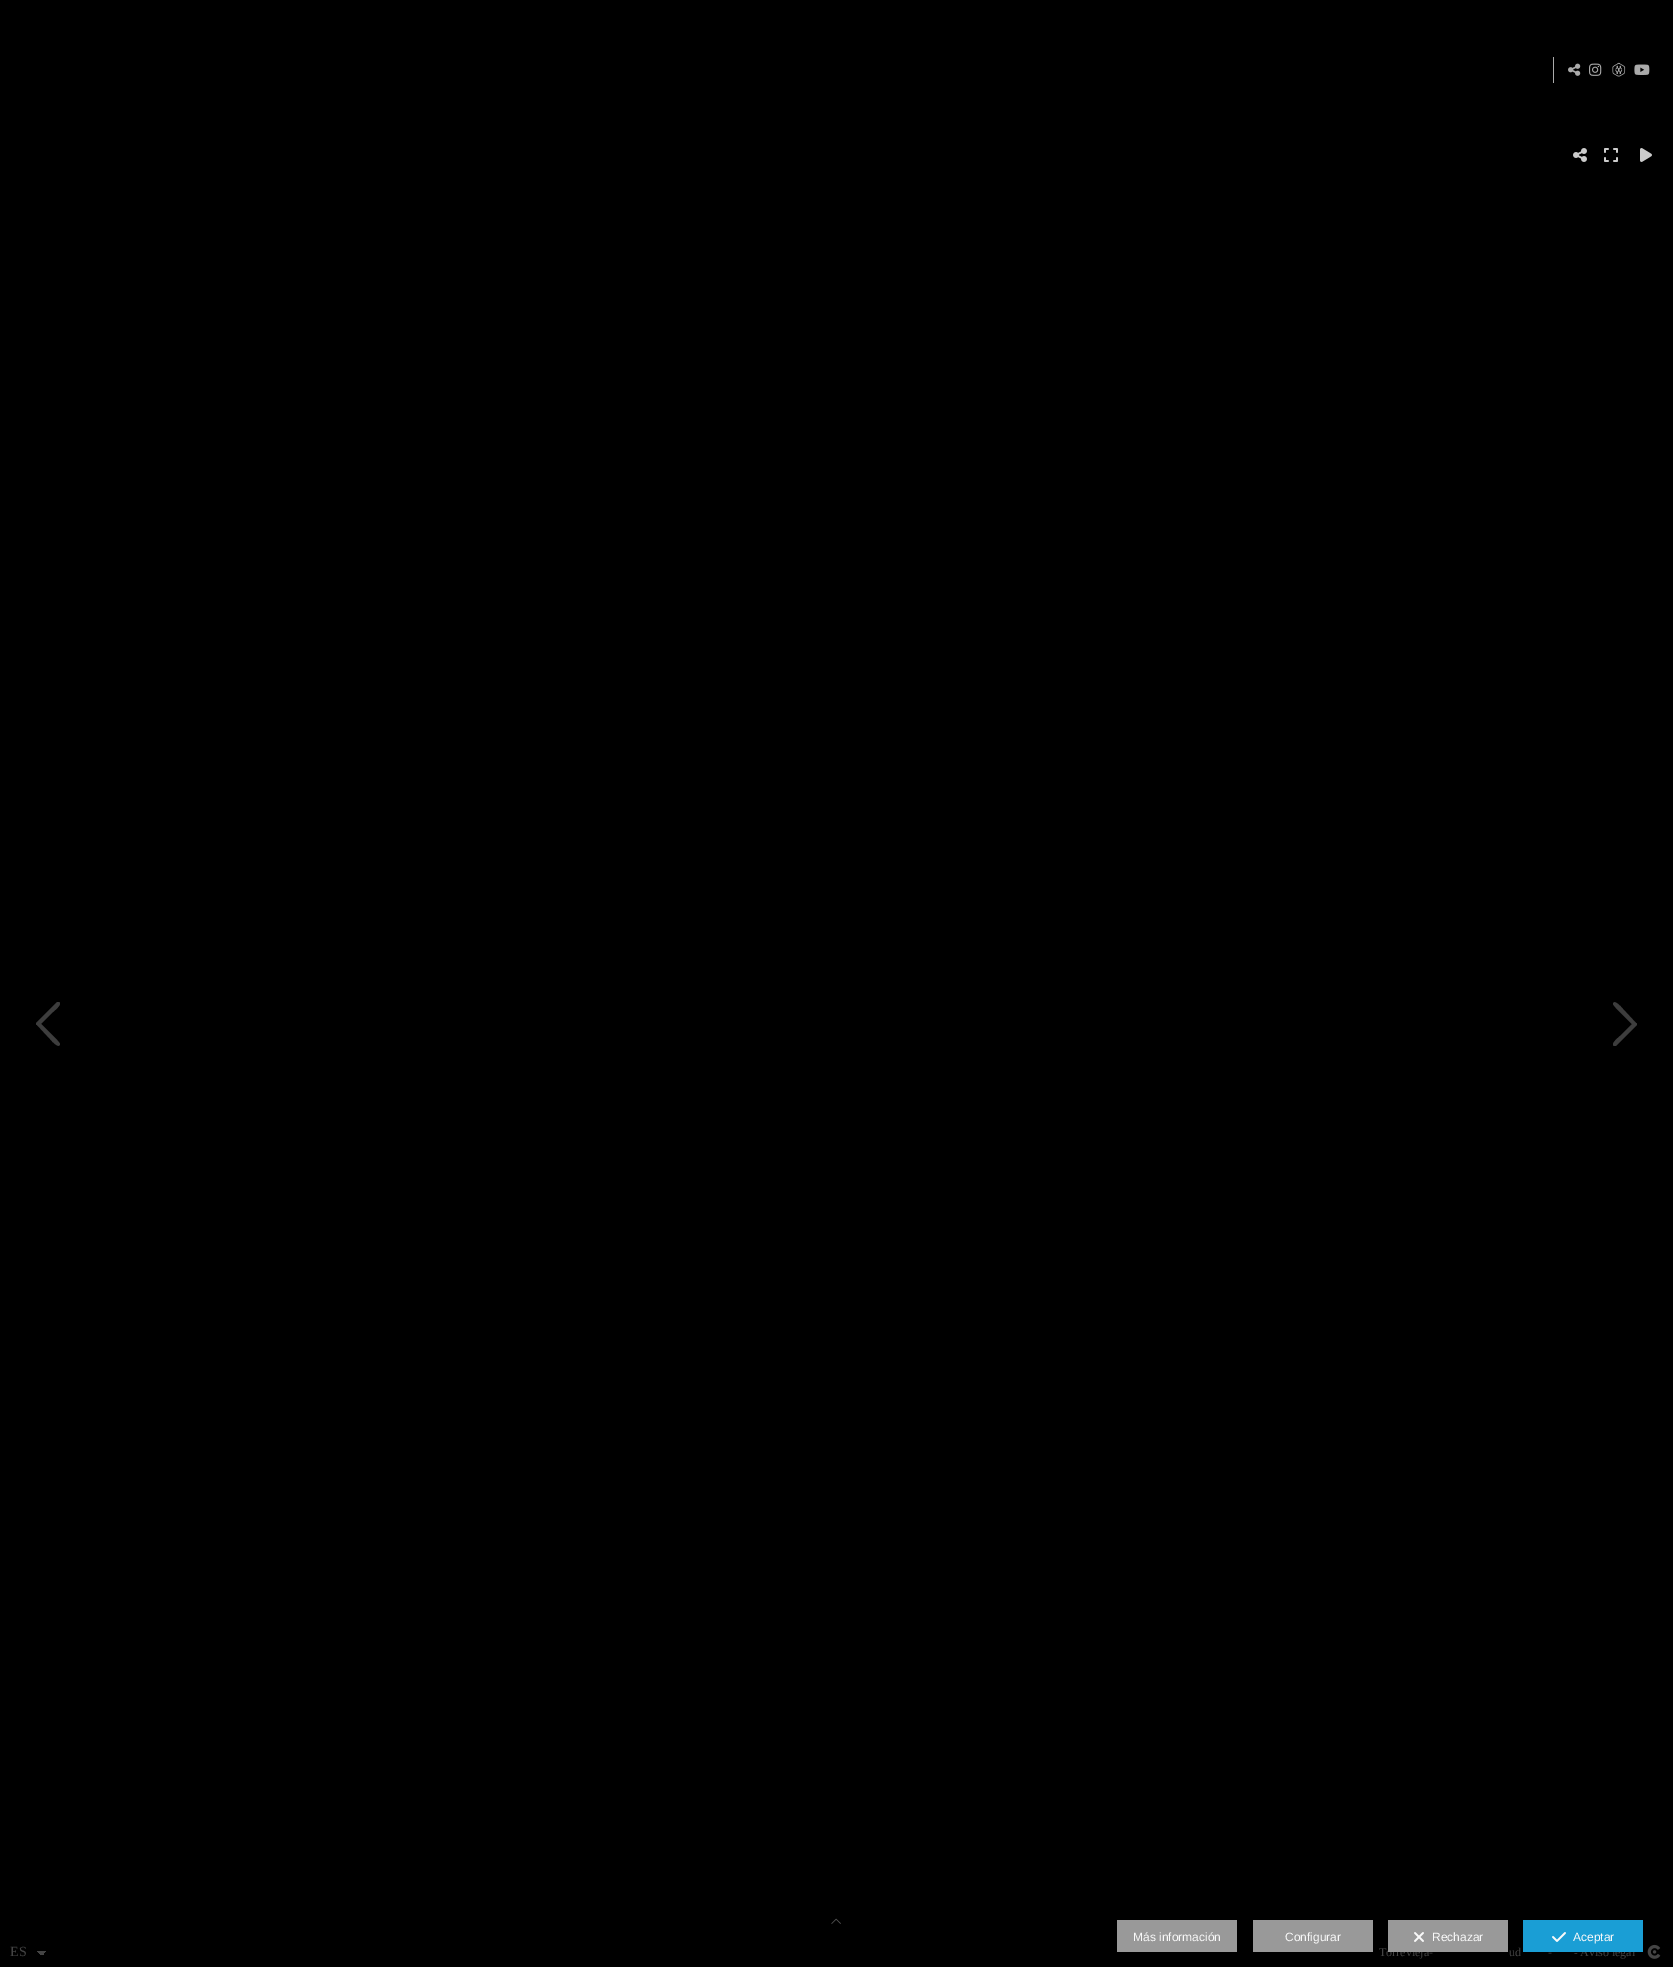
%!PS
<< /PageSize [1673 1967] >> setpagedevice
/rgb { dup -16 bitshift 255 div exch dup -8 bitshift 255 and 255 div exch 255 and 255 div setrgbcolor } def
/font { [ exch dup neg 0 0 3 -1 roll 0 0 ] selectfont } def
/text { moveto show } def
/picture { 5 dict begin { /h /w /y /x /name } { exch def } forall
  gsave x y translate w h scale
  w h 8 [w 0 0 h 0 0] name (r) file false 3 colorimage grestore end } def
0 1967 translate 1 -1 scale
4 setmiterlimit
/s1 { /LiberationSans-Regular 12 font 16#F9F9F9 rgb } def
/s2 { /LiberationSerif-Regular 12 font 16#444444 rgb } def
/s3 { /LiberationSerif-Regular 14 font 16#444444 rgb } def
/s4 { /LiberationSerif-Regular 11 font 16#444444 rgb } def
16#000000 rgb
0 0 1673 1967 rectfill
16#999999 rgb
1117 1920 120 32 rectfill
s1
(Más información) 1133 1941 text
16#999999 rgb
1253 1920 120 32 rectfill
s1
(Configurar) 1285 1941 text
s2
(Torrevieja-) 1379 1956 text
16#999999 rgb
1388 1920 120 32 rectfill
(pic1.raw) 1414 1932 10 10 picture
s1
(Rechazar) 1432 1941 text
s2
(Aviso legal) 1580 1956 text
16#1A9ED5 rgb
1523 1920 120 32 rectfill
(pic2.raw) 1552 1932 14 10 picture
s1
(Aceptar) 1573 1941 text
16#AAAAAA rgb
1553 57 1 26 rectfill
(pic3.raw) 1568 63 13 13 picture
(pic4.raw) 1589 63 13 13 picture
(pic5.raw) 1612 62 14 15 picture
(pic6.raw) 1634 64 16 11 picture
(pic7.raw) 1573 148 14 14 picture
(pic8.raw) 1604 148 14 14 picture
(pic9.raw) 1640 148 12 14 picture
16#3D3D3D rgb
37 1025 moveto 36 1025 36 1024 36 1023 curveto 57 1002 lineto 59 1002 lineto 63 1004 54 1011 53 1012 curveto 41 1024 lineto 43 1026 60 1042 60 1044 curveto 59 1050 50 1039 50 1039 curveto closepath fill
1636 1023 moveto 1637 1023 1637 1024 1637 1025 curveto 1616 1046 lineto 1614 1046 lineto 1610 1044 1619 1037 1620 1036 curveto 1632 1024 lineto 1630 1022 1613 1006 1613 1004 curveto 1614 998 1623 1009 1623 1009 curveto closepath fill
(pic10.raw) 831 1918 10 6 picture
gsave 42 1951 moveto 47 1951 lineto 47 1955 lineto 42 1955 lineto closepath clip newpath
<< /ShadingType 2 /ColorSpace /DeviceRGB /Coords [42 1951 47 1956] /Extend [true true] /Function << /FunctionType 3 /Domain [0 1] /Functions [<< /FunctionType 2 /Domain [0 1] /C0 [0.267 0.267 0.267] /C1 [0.267 0.267 0.267] /N 1 >> << /FunctionType 2 /Domain [0 1] /C0 [0 0 0] /C1 [0 0 0] /N 1 >>] /Bounds [0.5] /Encode [0 1 0 1] >> >> shfill grestore
gsave 37 1951 moveto 42 1951 lineto 42 1955 lineto 37 1955 lineto closepath clip newpath
<< /ShadingType 2 /ColorSpace /DeviceRGB /Coords [37 1956 42 1951] /Extend [true true] /Function << /FunctionType 3 /Domain [0 1] /Functions [<< /FunctionType 2 /Domain [0 1] /C0 [0 0 0] /C1 [0 0 0] /N 1 >> << /FunctionType 2 /Domain [0 1] /C0 [0.267 0.267 0.267] /C1 [0.267 0.267 0.267] /N 1 >>] /Bounds [0.5] /Encode [0 1 0 1] >> >> shfill grestore
s3
(ES) 10 1956 text
s2
(ud) 1509 1956 text
(-) 1548 1956 text
s4
(-) 1574 1956 text
(pic11.raw) 1647 1944 14 15 picture
showpage
